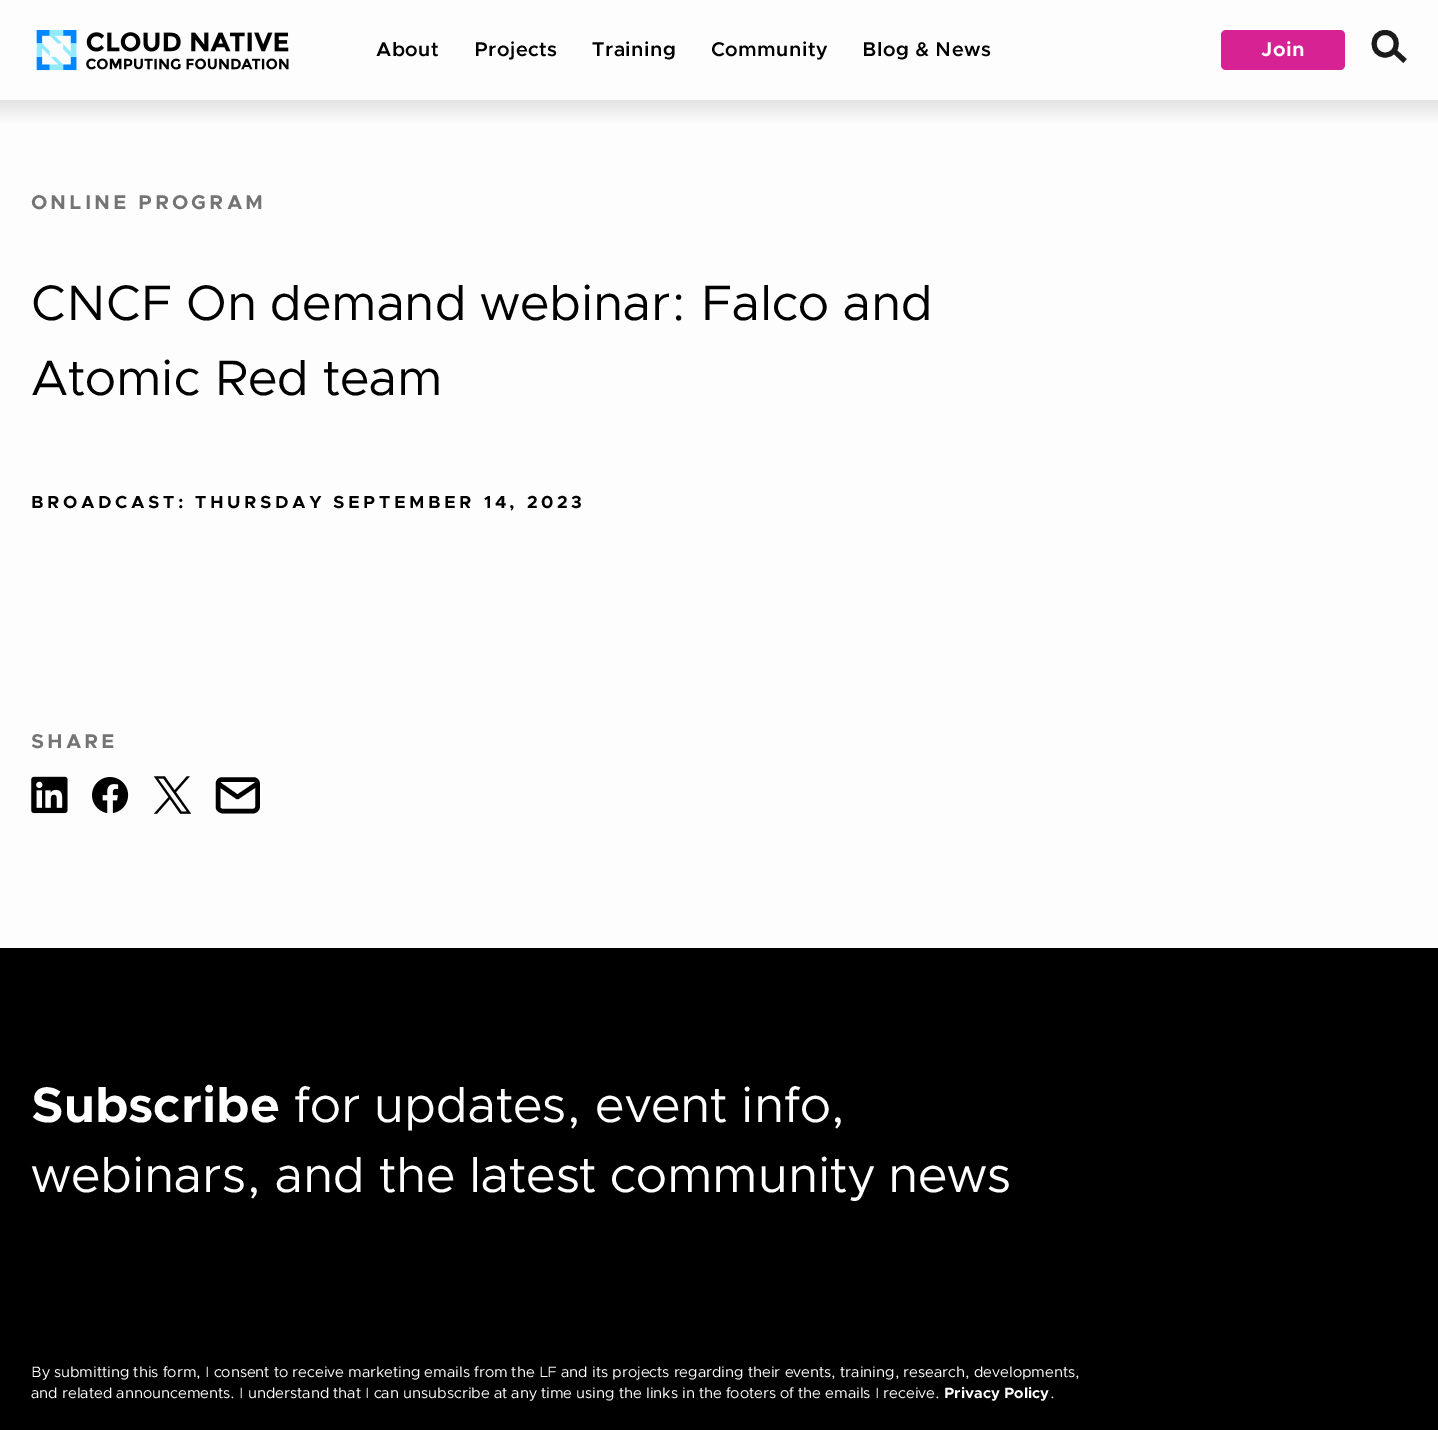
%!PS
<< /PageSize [1438 1430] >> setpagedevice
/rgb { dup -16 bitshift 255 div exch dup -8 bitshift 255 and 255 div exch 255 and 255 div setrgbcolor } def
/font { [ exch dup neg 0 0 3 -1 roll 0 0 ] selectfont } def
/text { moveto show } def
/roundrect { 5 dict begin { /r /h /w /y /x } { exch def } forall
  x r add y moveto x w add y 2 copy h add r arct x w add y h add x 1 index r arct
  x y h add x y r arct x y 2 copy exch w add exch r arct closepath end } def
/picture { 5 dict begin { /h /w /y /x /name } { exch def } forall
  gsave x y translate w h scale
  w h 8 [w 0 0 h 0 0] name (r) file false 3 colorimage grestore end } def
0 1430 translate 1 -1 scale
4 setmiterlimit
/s1 { /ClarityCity-Regular 50 font 16#000000 rgb } def
/s2 { /ClarityCity-Bold 50 font 16#FFFFFF rgb } def
/s3 { /ClarityCity-Regular 50 font 16#FFFFFF rgb } def
/s4 { /ClarityCity-Regular 15 font 16#FFFFFF rgb } def
/s5 { /ClarityCity-Bold 15 font 16#FFFFFF rgb } def
16#FDFDFD rgb
0 0 1438 1430 rectfill
(pic1.raw) 36 30 253 41 picture
/ClarityCity-SemiBold 20 font
16#000000 rgb
376 56 moveto 0.4 0 (About) ashow
474 56 moveto 0.4 0 (Projects) ashow
592 56 moveto 0.4 0 (Training) ashow
711 56 moveto 0.4 0 (Community) ashow
862 56 moveto 0.4 0 (Blog & News) ashow
16#D62293 rgb
1221 30 124 40 5 roundrect fill
/ClarityCity-Bold 20 font
16#FFFFFF rgb
1261 56 moveto 0.4 0 (Join) ashow
16#1B1B1B rgb
5 setlinewidth
1385 55 moveto 1400 55 1400 32.5 1385 32.5 curveto 1370.5 32.5 1370.5 55 1385 55 curveto closepath 1392.5 49.5 moveto 1405 61 lineto stroke
gsave 0 100 moveto 1438 100 lineto 1438 123 lineto 0 123 lineto closepath clip newpath
<< /ShadingType 2 /ColorSpace /DeviceRGB /Coords [719 100 719 125] /Extend [true true] /Function << /FunctionType 2 /Domain [0 1] /C0 [0.894 0.894 0.894] /C1 [0.992 0.992 0.992] /N 1 >> >> shfill grestore
16#747474 rgb
31 209 moveto 3 0 (ONLINE PROGRAM) ashow
s1
(CNCF On demand webinar: Falco and) 31 320 text
(Atomic Red team) 31 395 text
/ClarityCity-Bold 17.5 font
31 508 moveto 3.5 0 (BROADCAST: THURSDAY SEPTEMBER 14, 2023) ashow
/ClarityCity-Bold 20 font
16#747474 rgb
31 748 moveto 3 0 (SHARE) ashow
(pic2.raw) 31 776 37 38 picture
(pic3.raw) 92 777 37 36 picture
(pic4.raw) 154 776 37 38 picture
16#000000 rgb
4.4 setlinewidth
1 setlinecap
1 setlinejoin
222 779.5 moveto 253.5 779.5 lineto 255.5 779.5 257.5 781 257.5 783.5 curveto 257.5 807 lineto 257.5 809 255.5 811 253.5 811 curveto 222 811 lineto 220 810.5 218 809 218 807 curveto 218 783.5 lineto 218 781 220 779.5 222 779.5 curveto closepath 257.5 783.5 moveto 237.5 797 lineto 218 783.5 lineto stroke
0 948 1438 482 rectfill
s2
(Subscribe) 31 1122 text
s3
(for updates, event info,) 294 1122 text
(webinars, and the latest community news) 31 1192 text
s4
(By submitting this form, I consent to receive marketing emails from the LF and its projects regarding their events, training, research, developments,) 31 1377 text
(and related announcements. I understand that I can unsubscribe at any time using the links in the footers of the emails I receive.) 31 1398 text
s5
(Privacy Policy) 944 1398 text
s4
(.) 1050 1398 text
showpage
